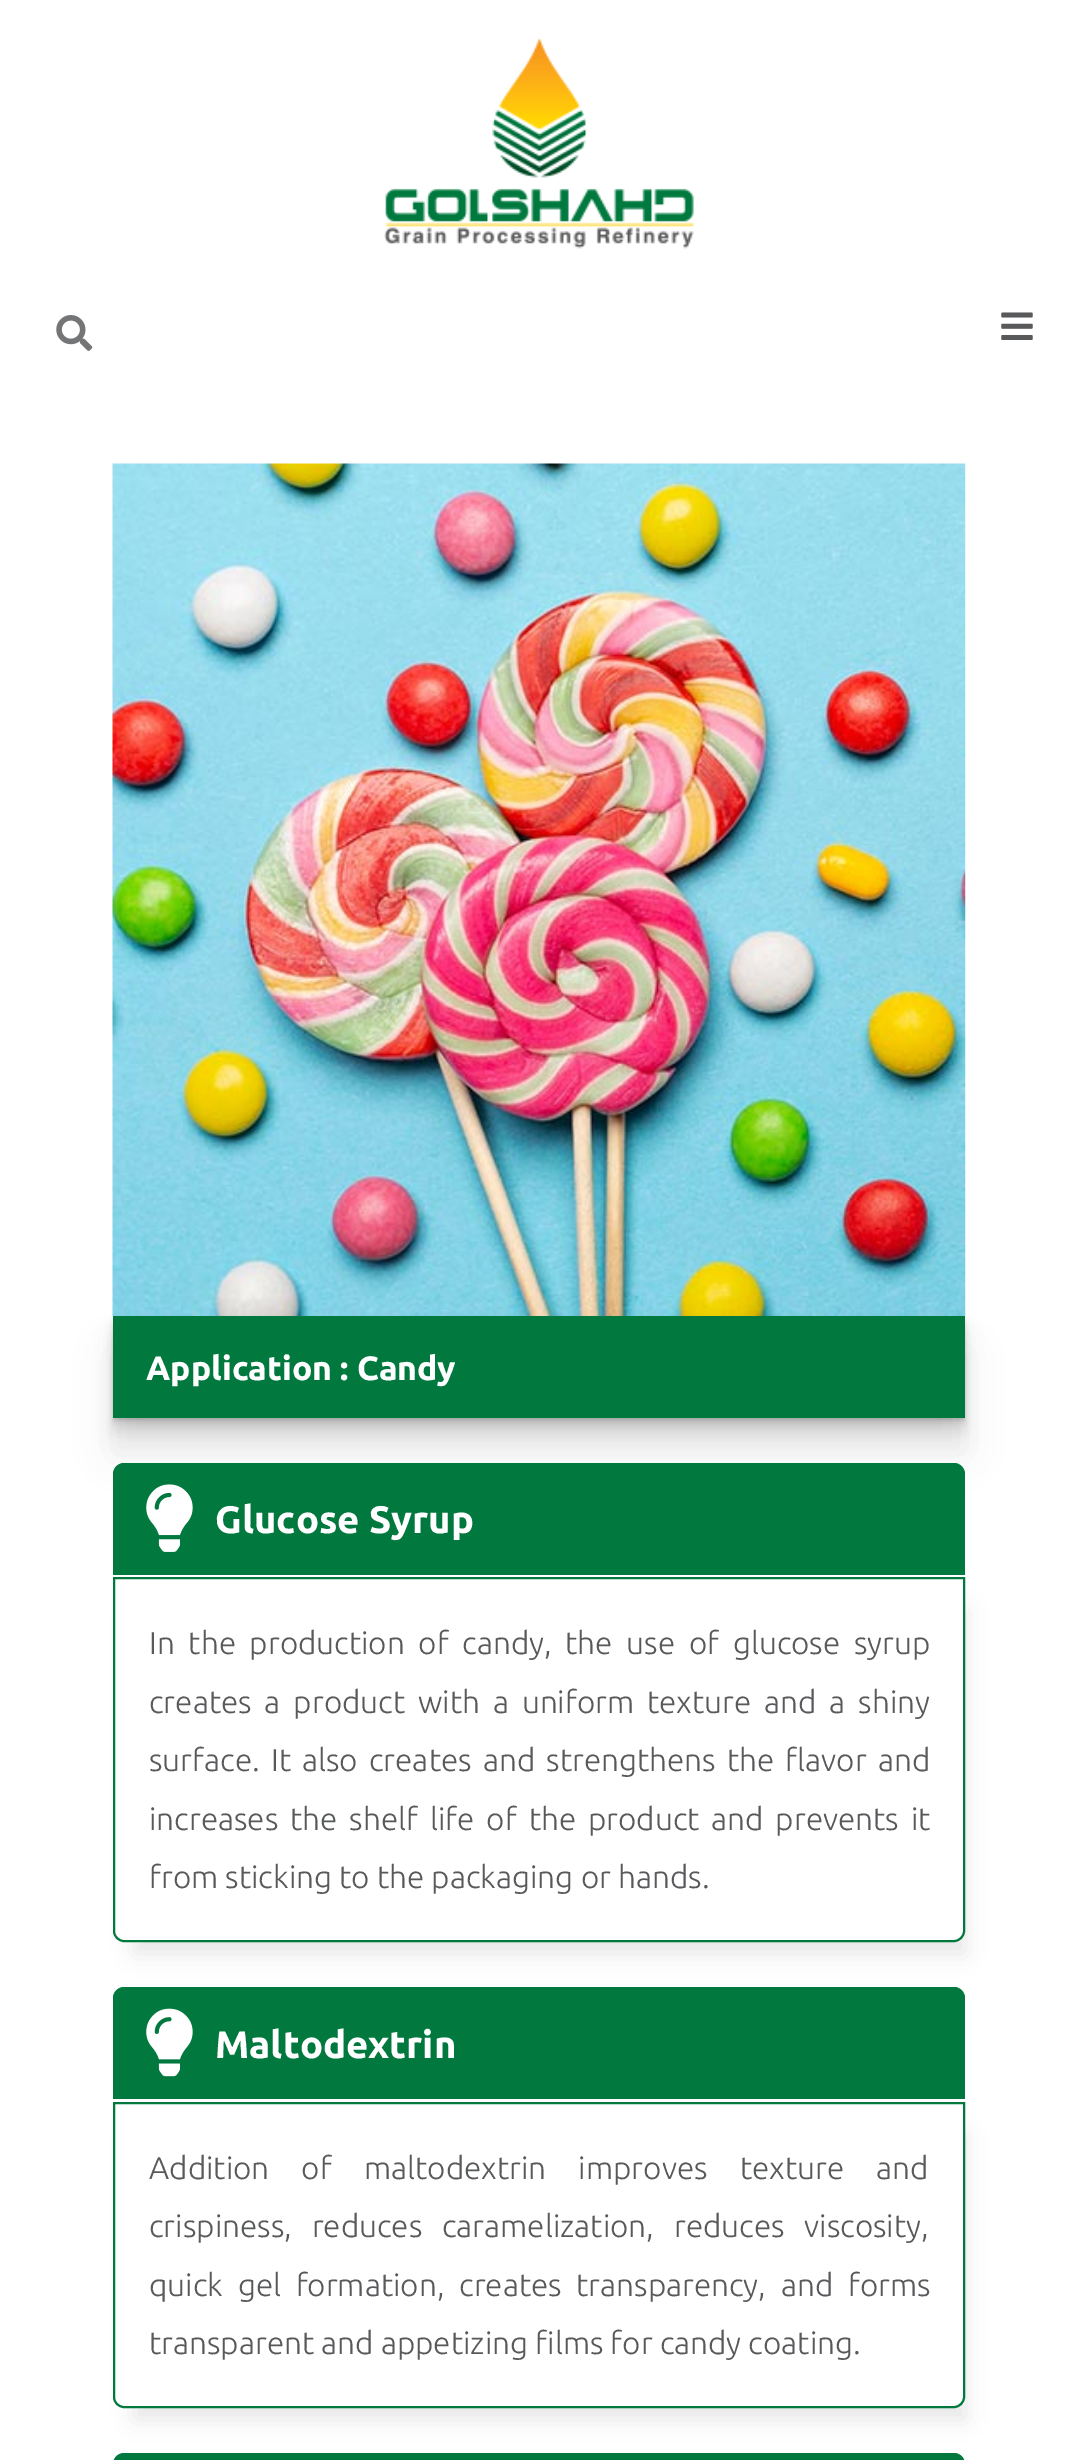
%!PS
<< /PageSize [1077 2460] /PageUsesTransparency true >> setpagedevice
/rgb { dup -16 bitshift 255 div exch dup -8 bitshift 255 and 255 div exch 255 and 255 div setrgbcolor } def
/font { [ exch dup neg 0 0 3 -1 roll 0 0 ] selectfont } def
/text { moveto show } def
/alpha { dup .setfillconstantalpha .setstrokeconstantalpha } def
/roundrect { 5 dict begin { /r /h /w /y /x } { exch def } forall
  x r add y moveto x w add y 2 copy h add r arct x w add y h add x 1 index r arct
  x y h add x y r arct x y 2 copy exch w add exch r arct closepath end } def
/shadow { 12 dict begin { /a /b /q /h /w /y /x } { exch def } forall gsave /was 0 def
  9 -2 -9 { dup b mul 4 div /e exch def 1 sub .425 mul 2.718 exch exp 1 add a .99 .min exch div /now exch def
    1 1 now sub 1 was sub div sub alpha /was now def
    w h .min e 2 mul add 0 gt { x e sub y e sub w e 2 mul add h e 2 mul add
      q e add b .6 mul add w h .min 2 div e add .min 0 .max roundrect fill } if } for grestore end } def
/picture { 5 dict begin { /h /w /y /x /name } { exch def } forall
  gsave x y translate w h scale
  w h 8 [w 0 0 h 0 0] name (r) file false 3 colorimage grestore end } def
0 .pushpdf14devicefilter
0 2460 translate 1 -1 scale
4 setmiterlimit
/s1 { /Ubuntu-Bold 33.75 font 16#FFFFFF rgb } def
/s2 { /Ubuntu-Bold 38.25 font 16#FFFFFF rgb } def
/s3 { /Ubuntu-Light 31.5 font 16#58595B rgb } def
16#FFFFFF rgb
0 0 1077 2460 rectfill
(pic1.raw) 384 37 310 212 picture
(pic2.raw) 56 315 37 36 picture
(pic3.raw) 1001 312 32 28 picture
(pic4.raw) 112 463 854 854 picture
16#000000 rgb
113 1352 852 102 0 18 0.07 shadow
113 1334 852 102 0 9 0.07 shadow
113 1325 852 102 0 4.5 0.07 shadow
113 1321 852 101 0 2 0.07 shadow
113 1319 852 101 0 1 0.07 shadow
16#00783E rgb
113 1316 852 102 rectfill
s1
(Application : Candy) 146 1380 text
16#00783E rgb
124 1463 moveto 954 1463 lineto 960 1463 965 1468 965 1474 curveto 965 1575 lineto 113 1575 lineto 113 1474 lineto 113 1468 118 1463 124 1463 curveto closepath fill
(pic5.raw) 146 1484 47 68 picture
s2
(Glucose Syrup) 215 1533 text
gsave
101 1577 moveto 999 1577 lineto 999 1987 lineto 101 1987 lineto closepath 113 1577 moveto 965 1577 lineto 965 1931 lineto 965 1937 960 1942 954 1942 curveto 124 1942 lineto 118 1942 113 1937 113 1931 curveto closepath eoclip newpath
16#000000 rgb
135 1611 830 342 0 11 0.1 shadow
grestore
16#00783E rgb
2 setlinewidth
114 1578 moveto 964 1578 lineto 964 1931 lineto 964 1936.5 959.5 1941 954 1941 curveto 124 1941 lineto 118.5 1941 114 1936.5 114 1931 curveto closepath stroke
/Ubuntu-Light 31.5 font
16#58595B rgb
149 1654 moveto 6.5 0 32 (In the production of candy, the use of glucose syrup) widthshow
149 1713 moveto 5.75 0 32 (creates a product with a uniform texture and a shiny) widthshow
149 1771 moveto 4 0 32 (surface. It also creates and strengthens the flavor and) widthshow
149 1830 moveto 4.75 0 32 (increases the shelf life of the product and prevents it) widthshow
(from sticking to the packaging or hands.) 149 1888 text
16#00783E rgb
124 1987 moveto 954 1987 lineto 960 1987 965 1992 965 1998 curveto 965 2099 lineto 113 2099 lineto 113 1998 lineto 113 1992 118 1987 124 1987 curveto closepath fill
(pic6.raw) 146 2008 47 69 picture
s2
(Maltodextrin) 215 2058 text
gsave
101 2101 moveto 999 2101 lineto 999 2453 lineto 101 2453 lineto closepath 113 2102 moveto 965 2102 lineto 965 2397 lineto 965 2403 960 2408 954 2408 curveto 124 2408 lineto 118 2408 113 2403 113 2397 curveto closepath eoclip newpath
16#000000 rgb
135 2135 830 284 0 11 0.1 shadow
grestore
16#00783E rgb
114 2103 moveto 964 2103 lineto 964 2397 lineto 964 2402.5 959.5 2407 954 2407 curveto 124 2407 lineto 118.5 2407 114 2402.5 114 2397 curveto closepath stroke
/Ubuntu-Light 31.5 font
16#58595B rgb
149 2179 moveto 25 0 32 (Addition of maltodextrin improves texture and) widthshow
149 2237 moveto 12.5 0 32 (crispiness, reduces caramelization, reduces viscosity,) widthshow
149 2296 moveto 7.5 0 32 (quick gel formation, creates transparency, and forms) widthshow
(transparent and appetizing films for candy coating.) 149 2354 text
16#00783E rgb
124 2453 moveto 954 2453 lineto 960 2453 965 2458 965 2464 curveto 965 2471 lineto 113 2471 lineto 113 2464 lineto 113 2458 118 2453 124 2453 curveto closepath fill
.poppdf14devicefilter showpage
